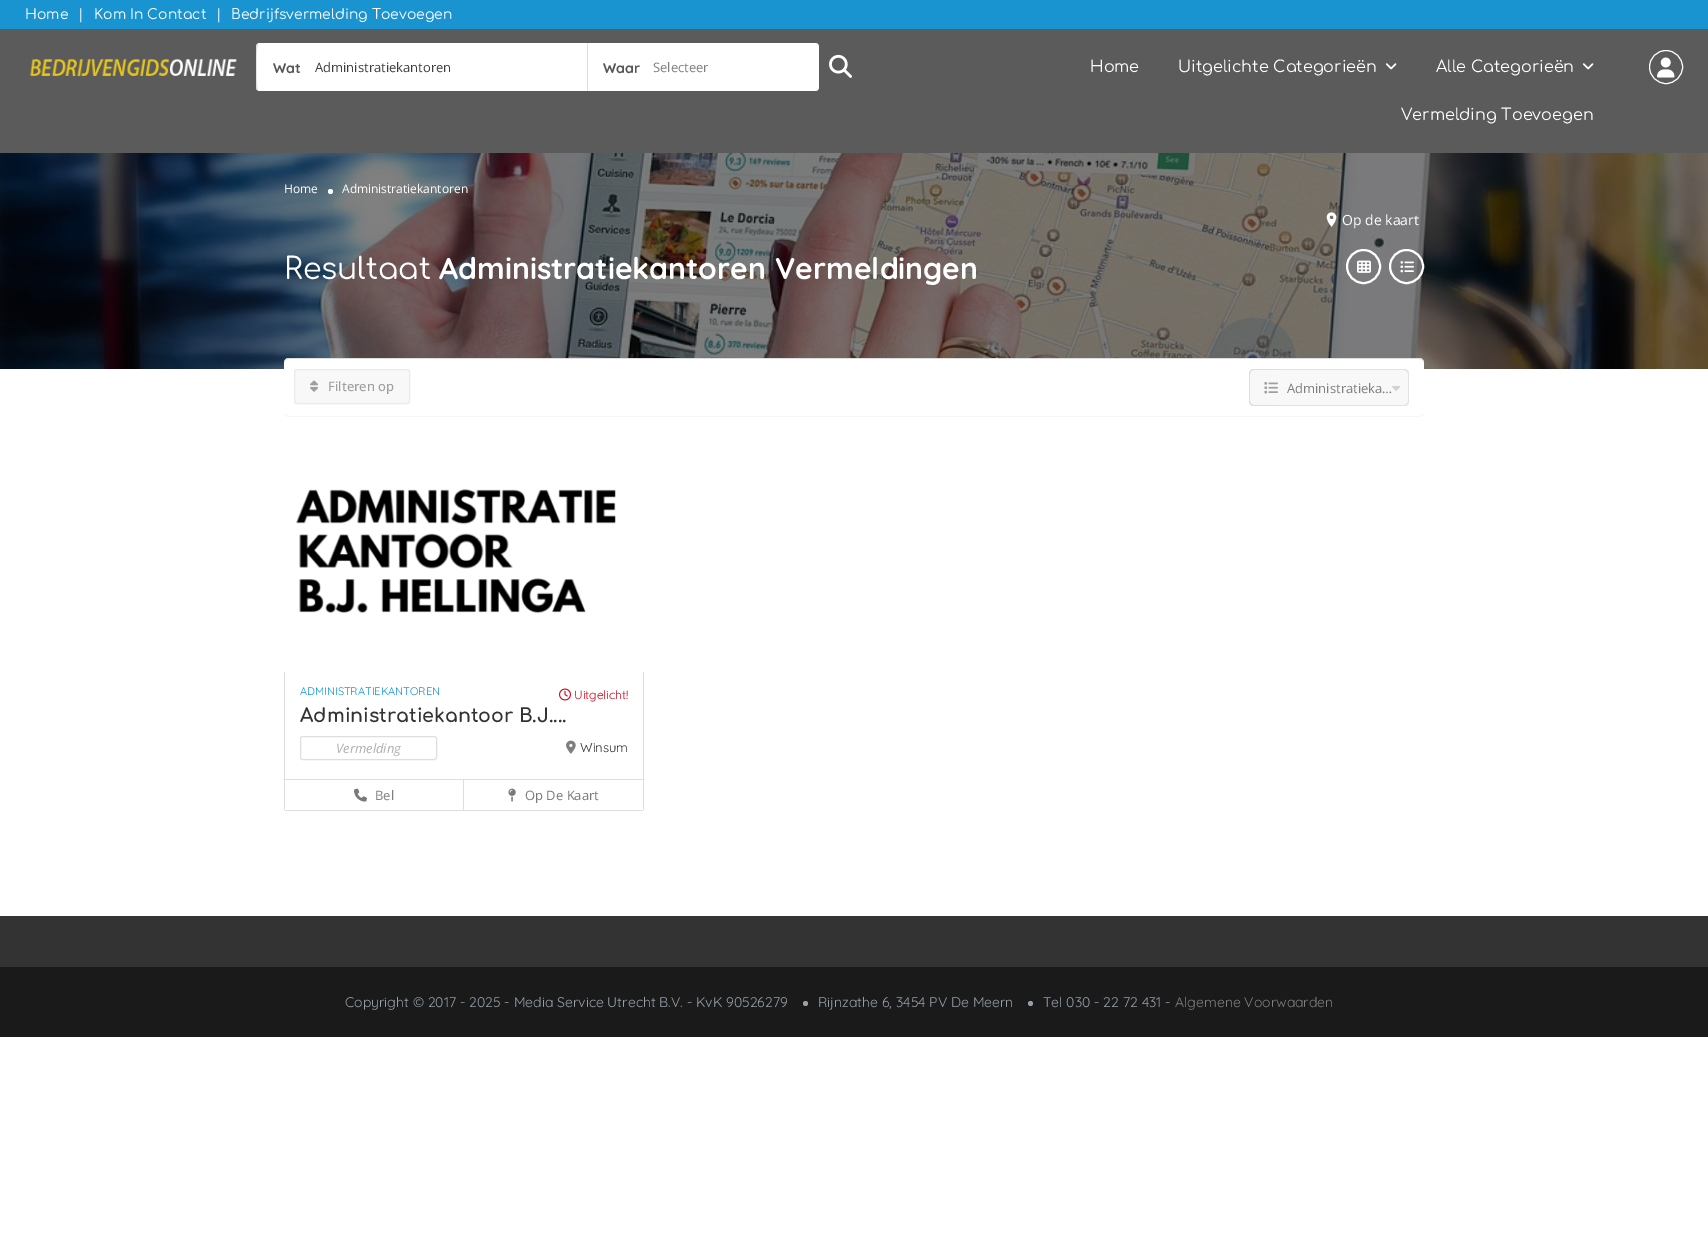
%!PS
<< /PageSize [1708 1238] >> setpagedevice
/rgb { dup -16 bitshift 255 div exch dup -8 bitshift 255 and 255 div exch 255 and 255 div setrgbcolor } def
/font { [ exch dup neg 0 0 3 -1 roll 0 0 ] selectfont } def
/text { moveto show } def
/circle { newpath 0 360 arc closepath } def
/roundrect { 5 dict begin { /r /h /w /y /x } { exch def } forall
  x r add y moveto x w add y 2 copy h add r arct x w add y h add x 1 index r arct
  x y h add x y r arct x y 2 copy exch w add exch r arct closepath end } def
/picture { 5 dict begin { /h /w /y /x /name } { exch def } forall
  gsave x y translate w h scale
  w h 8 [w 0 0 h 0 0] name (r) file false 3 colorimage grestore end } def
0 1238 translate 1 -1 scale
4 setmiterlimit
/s1 { /Comfortaa-Regular 14 font 16#FFFFFF rgb } def
/s2 { /Quicksand-Bold 14 font 16#555555 rgb } def
/s3 { /OpenSans-Regular 13 font 16#3E3E3E rgb } def
/s4 { /OpenSans-Regular 13 font 16#7F7F7F rgb } def
/s5 { /Comfortaa-Regular 16 font 16#FFFFFF rgb } def
/s6 { /OpenSans-Regular 12 font 16#FFFFFF rgb } def
/s7 { /OpenSans-Regular 14 font 16#FFFFFF rgb } def
/s8 { /Comfortaa-Regular 30 font 16#FFFFFF rgb } def
/s9 { /Quicksand-Bold 30 font 16#FFFFFF rgb } def
/s10 { /OpenSans-Medium 13 font 16#9F9F9F rgb } def
/s11 { /Quicksand-Regular 11 font 16#1193DD rgb } def
/s12 { /Quicksand-Regular 12 font 16#D0021B rgb } def
/s13 { /Comfortaa-Bold 19 font 16#333333 rgb } def
/s14 { /OpenSans-Italic 13 font 16#AFAFAF rgb } def
/s15 { /Quicksand-Regular 13 font 16#333333 rgb } def
/s16 { /OpenSans-Regular 13 font 16#797979 rgb } def
/s17 { /Quicksand-Regular 14 font 16#96A0A9 rgb } def
/s18 { /Quicksand-Regular 14 font 16#7F7F7F rgb } def
16#FFFFFF rgb
0 0 1708 1238 rectfill
16#1A94D1 rgb
0 0 1708 29 rectfill
s1
(Home) 25 19 text
(|) 78 19 text
(Kom In Contact) 94 19 text
(|) 216 19 text
(Bedrijfsvermelding Toevoegen) 231 19 text
16#5B5B5B rgb
0 29 1708 124 rectfill
(pic1.raw) 30 59 207 17 picture
16#FFFFFF rgb
260 43 moveto 587 43 lineto 587 91 lineto 260 91 lineto 258 91 256 89 256 87 curveto 256 47 lineto 256 45 258 43 260 43 curveto closepath fill
260 43 moveto 257 44 lineto 258 45 lineto 260 44 lineto 586 44 lineto 587 43 lineto closepath fill
587 91 moveto 586 90 lineto 260 90 lineto 258 89 lineto 257 90 lineto 260 91 lineto closepath fill
16#DEDEDE rgb
256 47 moveto 256 87 lineto 256 88 256 89 257 90 curveto 258 89 lineto 256 88 256 46 258 45 curveto 257 44 lineto closepath fill
s2
(Wat) 273 73 text
s3
(Administratiekantoren) 315 72 text
16#FFFFFF rgb
587 43 moveto 815 43 lineto 817 43 819 45 819 47 curveto 819 87 lineto 819 89 817 91 815 91 curveto 587 91 lineto closepath fill
587 43 moveto 588 44 lineto 815 44 lineto 817 45 lineto 818 44 lineto 815 43 lineto closepath fill
819 87 moveto 819 47 lineto 819 46 818 45 818 44 curveto 817 45 lineto 819 46 819 88 817 89 curveto 818 90 lineto closepath fill
815 91 moveto 818 90 lineto 817 89 lineto 815 90 lineto 588 90 lineto 587 91 lineto closepath fill
16#DEDEDE rgb
587 43 moveto 587 91 lineto 588 90 lineto 588 44 lineto closepath fill
s2
(Waar) 603 73 text
s4
(Selecteer) 653 72 text
(pic2.raw) 829 54 23 24 picture
s5
(Home) 1090 72 text
(Uitgelichte Categorieën) 1178 72 text
(pic3.raw) 1385 63 12 7 picture
(Alle Categorieën) 1436 72 text
(pic3.raw) 1582 63 12 7 picture
(Vermelding Toevoegen) 1401 120 text
1666 67 16.5 circle stroke
(pic4.raw) 1657 57 18 21 picture
(pic5.raw) 0 153 1708 216 picture
s6
(Home) 284 193 text
330.5 191.5 2.5 circle fill
(Administratiekantoren) 342 193 text
(pic6.raw) 1326 212 11 15 picture
s7
(Op de kaart) 1342 225 text
2 setlinewidth
1363.5 266.5 16.5 circle stroke
(pic7.raw) 1357 260 14 13 picture
1406.5 266.5 16.5 circle stroke
(pic8.raw) 1400 261 14 12 picture
s8
(Resultaat) 284 279 text
s9
(Administratiekantoren) 439 279 text
(Vermeldingen) 775 279 text
284 358 1140 59 5 roundrect fill
16#DEDEDE rgb
289 358 moveto 286 358 284 360 284 363 curveto 284 361 286 359 289 359 curveto 1419 359 lineto 1422 359 1424 361 1424 363 curveto 1424 360 1422 358 1419 358 curveto closepath fill
16#F6F6F6 rgb
1419 417 moveto 1422 417 1424 415 1424 412 curveto 1424 414 1422 416 1419 416 curveto 289 416 lineto 286 416 284 414 284 412 curveto 284 415 286 417 289 417 curveto closepath fill
16#F8F8F8 rgb
294.5 369.5 115 34 2.5 roundrect gsave fill grestore
16#EAEAEA rgb
1 setlinewidth
stroke
(pic9.raw) 310 380 9 12 picture
s10
(Filteren op) 328 391 text
16#F8F8F8 rgb
1254 369 moveto 1279 369 lineto 1279 406 lineto 1254 406 lineto 1251 406 1249 404 1249 401 curveto 1249 374 lineto 1249 371 1251 369 1254 369 curveto closepath fill
16#DEDEDE rgb
1254 369 moveto 1279 369 lineto 1279 406 lineto 1254 406 lineto 1251 406 1249 404 1249 401 curveto 1249 374 lineto 1249 371 1251 369 1254 369 curveto closepath 1254 370 moveto 1279 370 lineto 1279 405 lineto 1254 405 lineto 1252 405 1250 403 1250 401 curveto 1250 374 lineto 1250 372 1252 370 1254 370 curveto closepath eofill
(pic10.raw) 1264 382 14 12 picture
16#F8F8F8 rgb
1279 369 moveto 1404 369 lineto 1407 369 1409 371 1409 374 curveto 1409 401 lineto 1409 404 1407 406 1404 406 curveto 1279 406 lineto closepath fill
16#E3E3E3 rgb
1279 369 moveto 1404 369 lineto 1407 369 1409 371 1409 374 curveto 1409 401 lineto 1409 404 1407 406 1404 406 curveto 1279 406 lineto closepath 1279 370 moveto 1404 370 lineto 1406 370 1408 372 1408 374 curveto 1408 401 lineto 1408 403 1406 405 1404 405 curveto 1279 405 lineto closepath eofill
s4
(Administratieka…) 1287 393 text
(pic11.raw) 1392 386 8 5 picture
(pic12.raw) 295 489 321 125 picture
16#DEDEDE rgb
643 672 1 138 rectfill
284 779 360 1 rectfill
284 672 1 138 rectfill
s11
(ADMINISTRATIEKANTOREN) 300 695 text
(pic13.raw) 559 688 12 13 picture
s12
(Uitgelicht!) 574 699 text
s13
(Administratiekantoor B.J....) 300 722 text
16#DEDEDE rgb
300.5 736.5 136 23 2.5 roundrect stroke
s14
(Vermelding) 336 753 text
(pic14.raw) 566 740 10 14 picture
s15
(Winsum) 580 752 text
16#DEDEDE rgb
285 810 358 1 rectfill
463 780 1 30 rectfill
(pic15.raw) 354 788 13 14 picture
s4
(Bel) 375 800 text
(pic16.raw) 508 788 8 14 picture
s16
(Op De Kaart) 525 800 text
16#333333 rgb
0 916 1708 51 rectfill
16#1A1A1A rgb
0 967 1708 70 rectfill
s17
(Copyright © 2017 - 2025 - Media Service Utrecht B.V. - KvK 90526279) 345 1007 text
805.5 1003.5 2.5 circle fill
(Rijnzathe 6, 3454 PV De Meern) 818 1007 text
1030.5 1003.5 2.5 circle fill
(Tel 030 - 22 72 431 -) 1043 1007 text
s18
(Algemene Voorwaarden) 1175 1007 text
showpage
